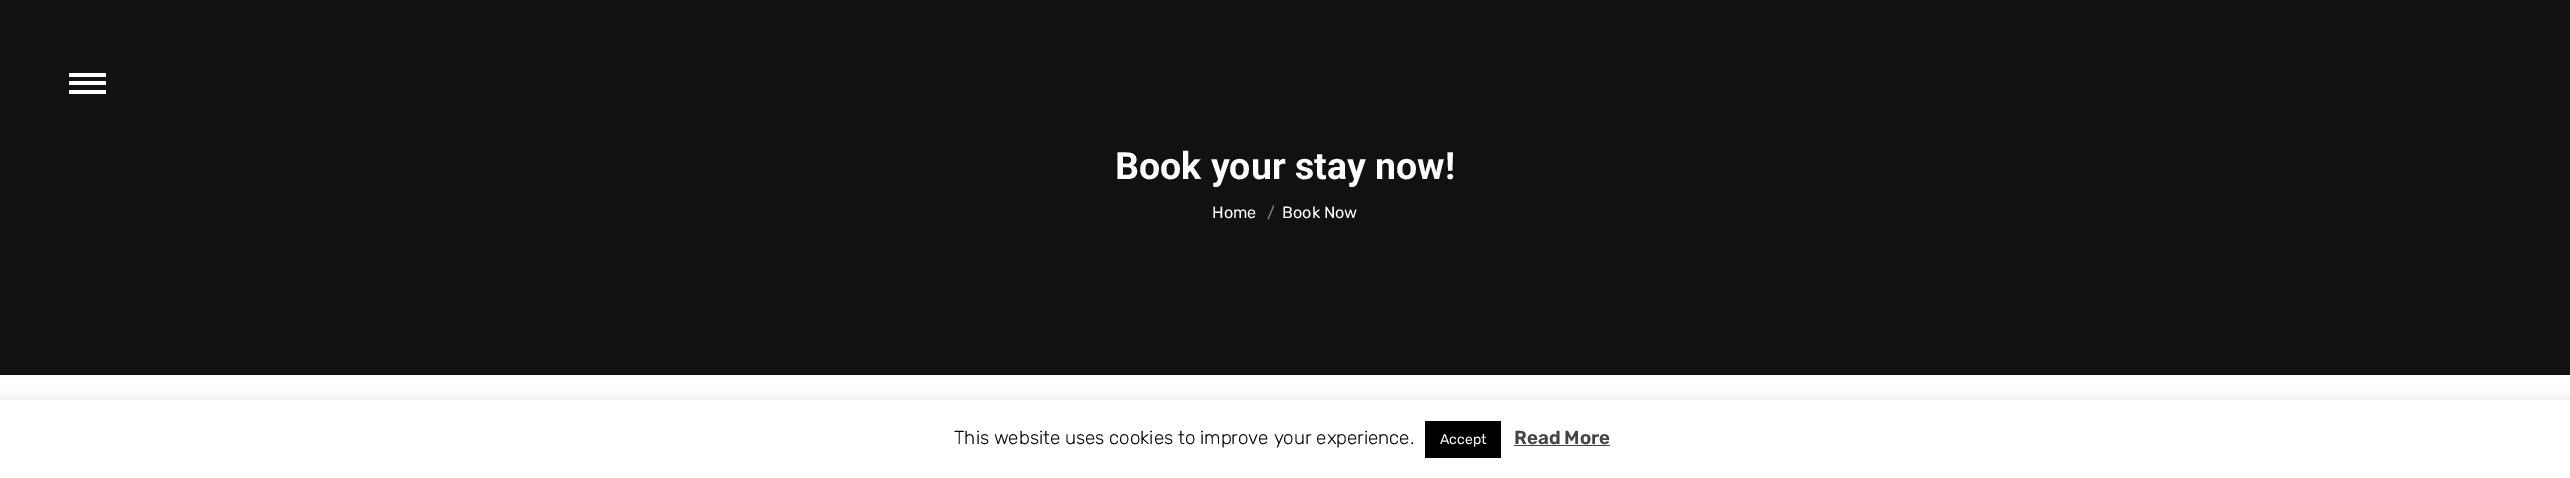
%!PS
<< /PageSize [2570 478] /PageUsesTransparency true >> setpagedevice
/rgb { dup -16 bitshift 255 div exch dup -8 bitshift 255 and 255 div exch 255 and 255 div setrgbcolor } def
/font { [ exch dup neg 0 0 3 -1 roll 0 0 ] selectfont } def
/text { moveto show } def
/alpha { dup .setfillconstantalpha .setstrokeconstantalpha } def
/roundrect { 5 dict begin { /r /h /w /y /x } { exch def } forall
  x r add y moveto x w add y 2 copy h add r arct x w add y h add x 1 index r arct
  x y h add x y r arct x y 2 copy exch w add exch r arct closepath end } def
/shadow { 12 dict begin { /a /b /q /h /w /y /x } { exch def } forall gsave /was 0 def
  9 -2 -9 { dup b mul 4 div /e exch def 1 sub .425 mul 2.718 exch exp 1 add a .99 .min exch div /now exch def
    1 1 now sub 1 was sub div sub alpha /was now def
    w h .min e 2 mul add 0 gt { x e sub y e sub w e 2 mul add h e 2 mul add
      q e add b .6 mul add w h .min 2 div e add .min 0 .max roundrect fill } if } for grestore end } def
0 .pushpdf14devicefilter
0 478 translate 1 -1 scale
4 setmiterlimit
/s1 { /Roboto-Bold 37.5 font 16#FFFFFF rgb } def
/s2 { /Rubik-Regular 16.25 font 16#FFFFFF rgb } def
/s3 { /Rubik-Regular 16.25 font 16#888888 rgb } def
/s4 { /Rubik-Light 18.75 font 16#000000 rgb } def
/s5 { /Rubik-Regular 14 font 16#FFFFFF rgb } def
/s6 { /Rubik-SemiBold 18.75 font 16#444444 rgb } def
16#FFFFFF rgb
0 0 2570 478 rectfill
16#111111 rgb
0 0 2570 375 rectfill
16#FFFFFF rgb
69 73 37 4 rectfill
69 81 37 4 rectfill
69 90 37 4 rectfill
s1
(Book your stay now!) 1115 179 text
s2
(Home) 1212 218 text
s3
(/) 1267 218 text
s2
(Book Now) 1282 218 text
gsave
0 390 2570 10 rectclip
16#ACABAB rgb
0 399 2570 79 0 6 0.3 shadow
grestore
s4
(This website uses cookies to improve your experience.) 954 444 text
1425 421 76 37 rectfill
s5
(Accept) 1440 444 text
s6
(Read More) 1514 444 text
1514 445 96 1 rectfill
.poppdf14devicefilter showpage
